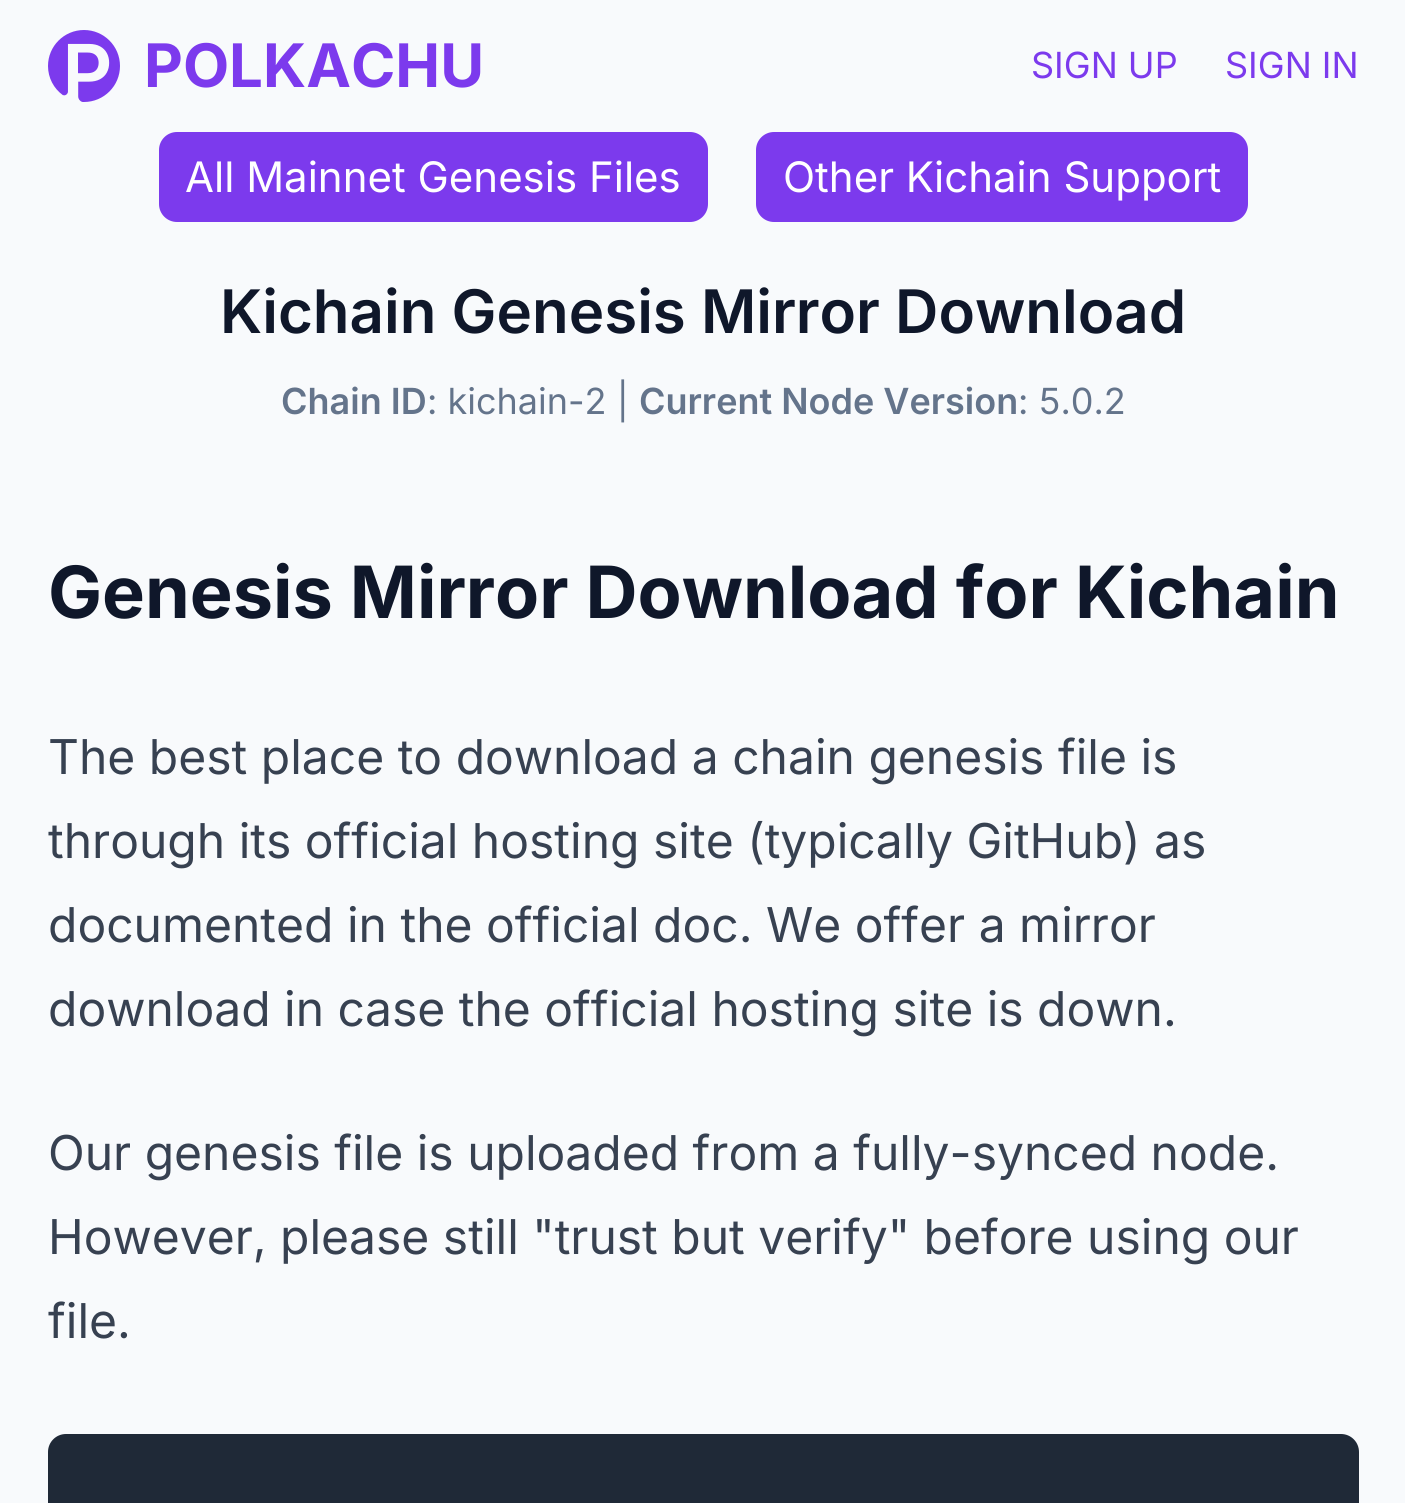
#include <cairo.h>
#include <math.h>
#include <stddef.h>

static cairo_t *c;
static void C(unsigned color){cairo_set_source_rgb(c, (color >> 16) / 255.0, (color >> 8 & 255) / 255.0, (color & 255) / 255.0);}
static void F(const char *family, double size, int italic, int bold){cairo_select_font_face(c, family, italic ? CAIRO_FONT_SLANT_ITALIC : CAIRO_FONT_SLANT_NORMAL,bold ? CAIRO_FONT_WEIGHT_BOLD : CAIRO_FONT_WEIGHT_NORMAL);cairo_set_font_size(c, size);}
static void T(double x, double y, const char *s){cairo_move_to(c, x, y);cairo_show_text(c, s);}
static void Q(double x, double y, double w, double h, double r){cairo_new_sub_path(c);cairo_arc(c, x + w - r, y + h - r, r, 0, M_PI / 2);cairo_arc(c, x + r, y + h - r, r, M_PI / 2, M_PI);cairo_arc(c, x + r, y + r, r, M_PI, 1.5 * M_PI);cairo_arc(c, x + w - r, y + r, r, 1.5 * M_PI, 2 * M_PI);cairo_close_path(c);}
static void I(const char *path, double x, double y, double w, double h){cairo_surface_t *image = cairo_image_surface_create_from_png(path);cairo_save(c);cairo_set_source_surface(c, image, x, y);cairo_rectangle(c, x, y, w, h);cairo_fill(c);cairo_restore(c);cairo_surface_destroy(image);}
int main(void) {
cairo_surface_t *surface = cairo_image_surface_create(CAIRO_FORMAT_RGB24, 1405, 1503);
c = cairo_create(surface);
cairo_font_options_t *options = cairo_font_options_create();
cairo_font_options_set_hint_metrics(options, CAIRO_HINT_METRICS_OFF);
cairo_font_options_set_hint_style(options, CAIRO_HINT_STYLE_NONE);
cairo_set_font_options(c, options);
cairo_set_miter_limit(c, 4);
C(0xf8fafc);
cairo_paint(c);
I("1.png",48,30,72,72);
F("Inter",60,0,1);
C(0x7c3aed);
T(144,87,"POLKACHU");
F("Inter",36,0,0);
T(1031,78,"SIGN UP");
T(1225,78,"SIGN IN");
Q(159,132,549,90,18);
cairo_fill(c);
F("Inter",42,0,0);
C(0xffffff);
T(185,192,"All Mainnet Genesis Files");
C(0x7c3aed);
Q(756,132,492,90,18);
cairo_fill(c);
C(0xffffff);
T(783,192,"Other Kichain Support");
F("Inter SemiBold",60,0,0);
C(0x0f172a);
T(220,333,"Kichain Genesis Mirror Download");
F("Inter SemiBold",36,0,0);
C(0x64748b);
T(281,414,"Chain ID");
F("Inter",36,0,0);
T(427,414,": kichain-2 |");
F("Inter SemiBold",36,0,0);
T(639,414,"Current Node Version");
F("Inter",36,0,0);
T(1018,414,": 5.0.2");
F("Inter",72,0,1);
C(0x0f172a);
T(48,618,"Genesis Mirror Download for Kichain");
F("Inter",48,0,0);
C(0x374151);
T(48,774,"The best place to download a chain genesis file is");
T(48,858,"through its official hosting site (typically GitHub) as");
T(48,942,"documented in the official doc. We offer a mirror");
T(48,1026,"download in case the official hosting site is down.");
T(48,1170,"Our genesis file is uploaded from a fully-synced node.");
T(48,1254,"However, please still \"trust but verify\" before using our");
T(48,1338,"file.");
C(0x1f2937);
Q(48,1434,1311,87,18);
cairo_fill(c);
cairo_surface_write_to_png(surface, "o.png");
cairo_font_options_destroy(options);
cairo_destroy(c);
cairo_surface_destroy(surface);
return 0;
}
